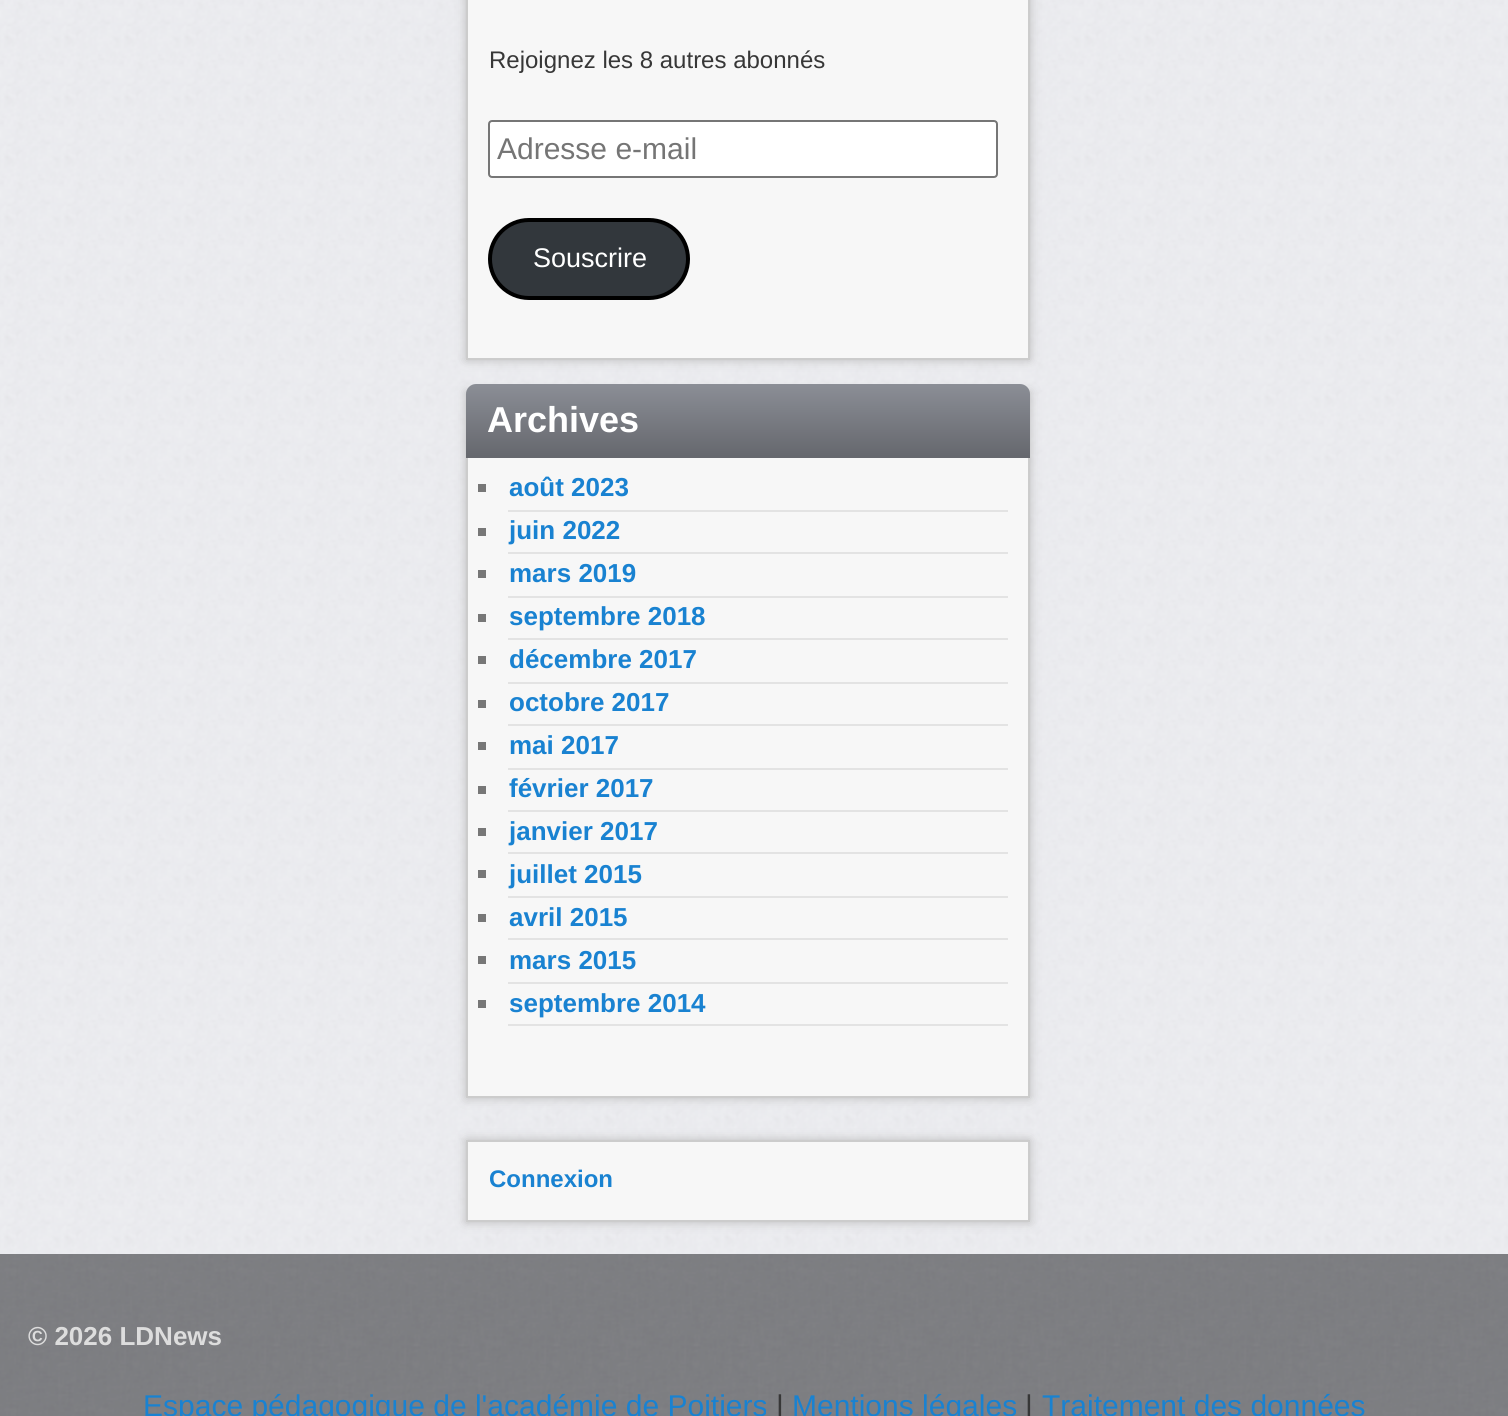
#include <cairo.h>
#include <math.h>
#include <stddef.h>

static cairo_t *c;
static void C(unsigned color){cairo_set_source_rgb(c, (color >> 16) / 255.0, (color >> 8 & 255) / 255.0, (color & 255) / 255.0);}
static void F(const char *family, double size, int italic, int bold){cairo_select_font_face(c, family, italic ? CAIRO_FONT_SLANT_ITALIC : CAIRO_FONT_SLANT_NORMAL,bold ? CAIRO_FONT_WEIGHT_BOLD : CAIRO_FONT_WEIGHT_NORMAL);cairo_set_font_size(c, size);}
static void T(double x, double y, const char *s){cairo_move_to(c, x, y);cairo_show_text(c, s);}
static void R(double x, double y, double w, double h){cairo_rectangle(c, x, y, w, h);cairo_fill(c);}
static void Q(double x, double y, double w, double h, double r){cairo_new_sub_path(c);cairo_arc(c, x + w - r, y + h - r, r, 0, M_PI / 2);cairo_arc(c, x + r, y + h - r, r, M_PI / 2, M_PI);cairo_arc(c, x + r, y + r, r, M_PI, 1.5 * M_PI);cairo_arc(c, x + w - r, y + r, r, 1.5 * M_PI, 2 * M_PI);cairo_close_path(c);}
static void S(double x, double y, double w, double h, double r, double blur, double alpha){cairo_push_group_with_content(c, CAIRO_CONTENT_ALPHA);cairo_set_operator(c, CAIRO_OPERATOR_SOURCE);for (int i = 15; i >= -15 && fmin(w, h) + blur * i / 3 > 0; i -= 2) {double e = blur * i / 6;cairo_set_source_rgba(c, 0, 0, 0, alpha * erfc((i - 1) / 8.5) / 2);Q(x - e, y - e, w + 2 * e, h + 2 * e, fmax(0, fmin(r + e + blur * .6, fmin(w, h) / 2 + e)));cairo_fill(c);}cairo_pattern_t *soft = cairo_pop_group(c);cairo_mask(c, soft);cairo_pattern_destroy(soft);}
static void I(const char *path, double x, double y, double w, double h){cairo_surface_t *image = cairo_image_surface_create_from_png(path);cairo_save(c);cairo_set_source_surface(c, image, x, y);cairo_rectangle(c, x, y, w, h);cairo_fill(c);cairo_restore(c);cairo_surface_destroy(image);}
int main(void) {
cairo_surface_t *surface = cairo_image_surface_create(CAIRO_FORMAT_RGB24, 1508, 1416);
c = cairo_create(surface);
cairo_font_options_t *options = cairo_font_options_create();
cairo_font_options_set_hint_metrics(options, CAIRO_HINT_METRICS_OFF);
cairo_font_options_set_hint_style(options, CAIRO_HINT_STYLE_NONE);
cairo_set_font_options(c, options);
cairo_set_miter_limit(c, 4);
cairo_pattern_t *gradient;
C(0xffffff);
cairo_paint(c);
I("1.png",0,0,1508,1254);
C(0xbbbbbb);
S(466,-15,564,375,0,5,1);
C(0xf7f7f7);
cairo_rectangle(c,467,-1,562,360);
cairo_fill_preserve(c);
C(0xcccccc);
cairo_stroke(c);
F("Liberation Sans",24,0,0);
C(0x373737);
T(489,68,"Rejoignez les 8 autres abonnés");
C(0xffffff);
Q(489,121,508,56,3);
cairo_fill_preserve(c);
C(0x767676);
cairo_stroke(c);
F("Liberation Sans",30,0,0);
C(0x757575);
T(497,159,"Adresse e-mail");
C(0x32373c);
Q(490,220,198,78,39);
cairo_fill_preserve(c);
C(0x000000);
cairo_set_line_width(c,4);
cairo_stroke(c);
F("Liberation Sans",27,0,0);
C(0xffffff);
T(533,267,"Souscrire");
C(0xbbbbbb);
S(466,392,564,706,0,5,1);
C(0xf7f7f7);
R(468,458,560,638);
cairo_rectangle(c,467,393,562,704);
C(0xcccccc);
cairo_set_line_width(c,2);
cairo_stroke(c);
gradient = cairo_pattern_create_linear(748,384,748,456);
cairo_pattern_add_color_stop_rgba(gradient,0,0.545,0.557,0.588,1);
cairo_pattern_add_color_stop_rgba(gradient,1,0.4,0.408,0.431,1);
cairo_set_source(c,gradient);
cairo_pattern_destroy(gradient);
cairo_new_path(c);
cairo_move_to(c,476,384);
cairo_line_to(c,1020,384);
cairo_curve_to(c,1025.5,384,1030,388.5,1030,394);
cairo_line_to(c,1030,456);
cairo_line_to(c,466,456);
cairo_line_to(c,466,394);
cairo_curve_to(c,466,388.5,470.5,384,476,384);
cairo_close_path(c);
cairo_fill(c);
C(0x66686e);
R(466,456,564,2);
F("Liberation Sans",36,0,1);
C(0xffffff);
T(487,432,"Archives");
C(0xe3e3e3);
R(508,510,500,2);
C(0x777777);
R(478,484,8,8);
F("Liberation Sans",26,0,1);
C(0x1982d1);
T(509,496,"août 2023");
C(0xe3e3e3);
R(508,552,500,2);
C(0x777777);
R(478,528,8,8);
C(0x1982d1);
T(509,539,"juin 2022");
C(0xe3e3e3);
R(508,596,500,2);
C(0x777777);
R(478,570,8,8);
C(0x1982d1);
T(509,582,"mars 2019");
C(0xe3e3e3);
R(508,638,500,2);
C(0x777777);
R(478,614,8,8);
C(0x1982d1);
T(509,625,"septembre 2018");
C(0xe3e3e3);
R(508,682,500,2);
C(0x777777);
R(478,656,8,8);
C(0x1982d1);
T(509,668,"décembre 2017");
C(0xe3e3e3);
R(508,724,500,2);
C(0x777777);
R(478,700,8,8);
C(0x1982d1);
T(509,711,"octobre 2017");
C(0xe3e3e3);
R(508,768,500,2);
C(0x777777);
R(478,742,8,8);
C(0x1982d1);
T(509,754,"mai 2017");
C(0xe3e3e3);
R(508,810,500,2);
C(0x777777);
R(478,786,8,8);
C(0x1982d1);
T(509,797,"février 2017");
C(0xe3e3e3);
R(508,852,500,2);
C(0x777777);
R(478,828,8,8);
C(0x1982d1);
T(509,840,"janvier 2017");
C(0xe3e3e3);
R(508,896,500,2);
C(0x777777);
R(478,870,8,8);
C(0x1982d1);
T(509,883,"juillet 2015");
C(0xe3e3e3);
R(508,938,500,2);
C(0x777777);
R(478,914,8,8);
C(0x1982d1);
T(509,926,"avril 2015");
C(0xe3e3e3);
R(508,982,500,2);
C(0x777777);
R(478,956,8,8);
C(0x1982d1);
T(509,969,"mars 2015");
C(0xe3e3e3);
R(508,1024,500,2);
C(0x777777);
R(478,1000,8,8);
C(0x1982d1);
T(509,1012,"septembre 2014");
C(0xbbbbbb);
S(466,1140,564,82,0,5,1);
C(0xf7f7f7);
cairo_rectangle(c,467,1141,562,80);
cairo_fill_preserve(c);
C(0xcccccc);
cairo_stroke(c);
F("Liberation Sans",24,0,1);
C(0x1982d1);
T(489,1187,"Connexion");
I("2.png",0,1254,1508,162);
F("Liberation Sans",26,0,1);
C(0xdddddd);
T(28,1345,"© 2026 LDNews");
F("Liberation Sans",30,0,0);
C(0x1982d1);
T(143,1416,"Espace pédagogique de l'académie de Poitiers");
C(0x373737);
T(776,1416,"|");
C(0x1982d1);
T(792,1416,"Mentions légales");
C(0x373737);
T(1025,1416,"|");
C(0x1982d1);
T(1042,1416,"Traitement des données");
cairo_surface_write_to_png(surface, "o.png");
cairo_font_options_destroy(options);
cairo_destroy(c);
cairo_surface_destroy(surface);
return 0;
}
